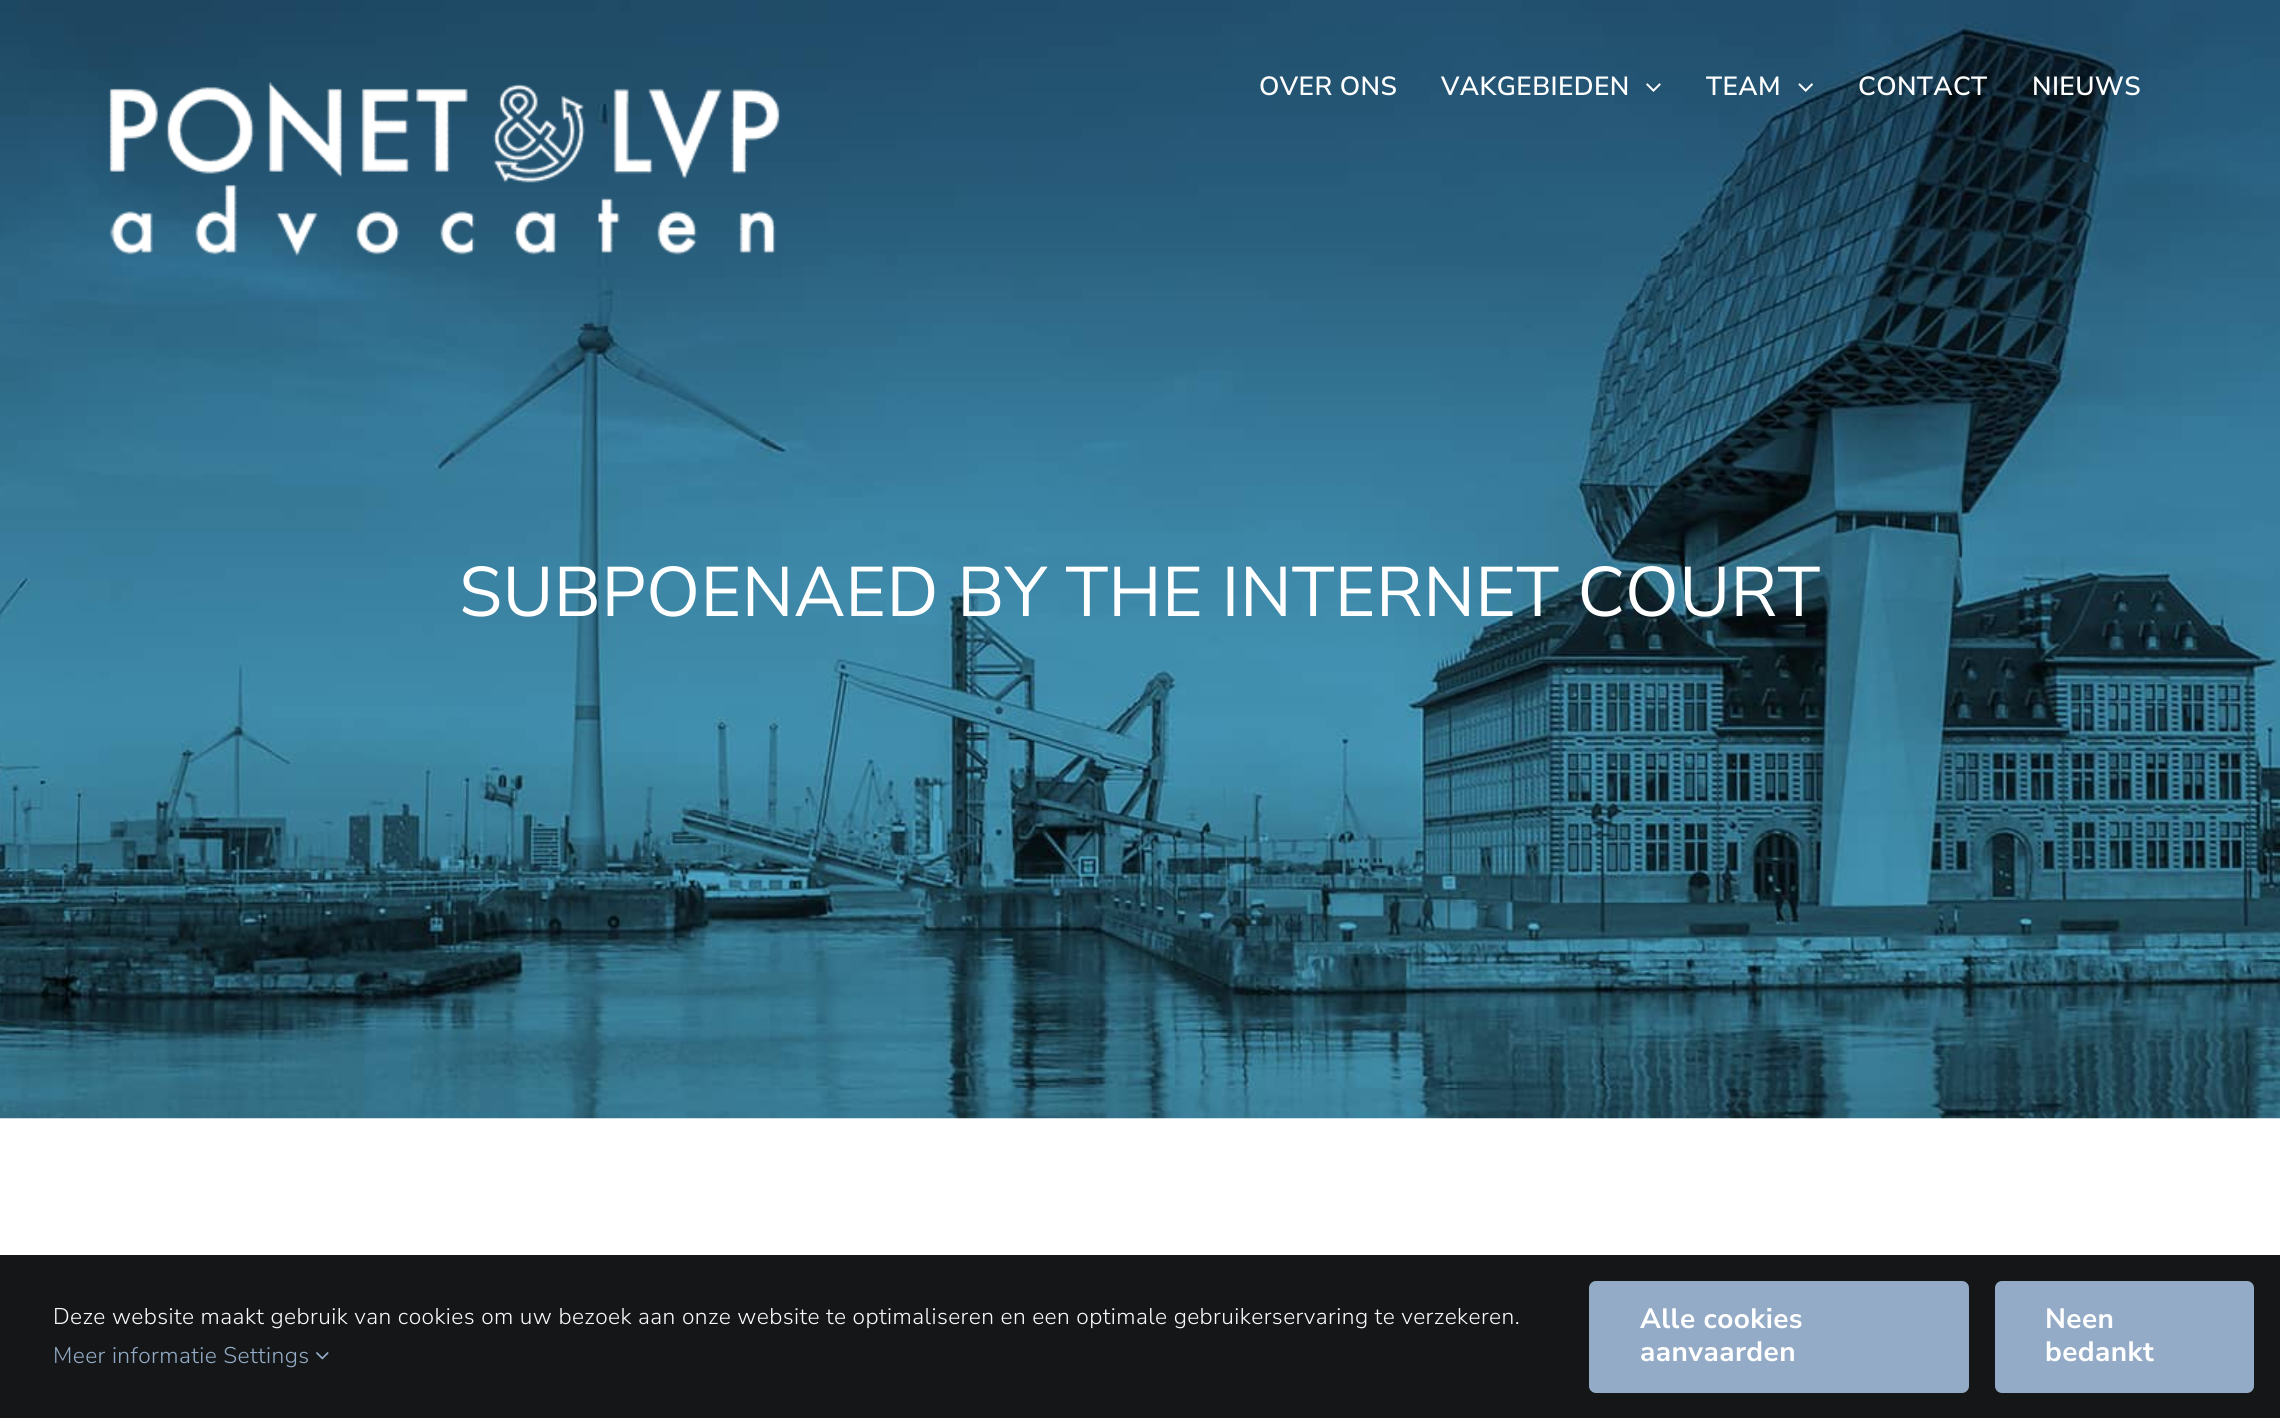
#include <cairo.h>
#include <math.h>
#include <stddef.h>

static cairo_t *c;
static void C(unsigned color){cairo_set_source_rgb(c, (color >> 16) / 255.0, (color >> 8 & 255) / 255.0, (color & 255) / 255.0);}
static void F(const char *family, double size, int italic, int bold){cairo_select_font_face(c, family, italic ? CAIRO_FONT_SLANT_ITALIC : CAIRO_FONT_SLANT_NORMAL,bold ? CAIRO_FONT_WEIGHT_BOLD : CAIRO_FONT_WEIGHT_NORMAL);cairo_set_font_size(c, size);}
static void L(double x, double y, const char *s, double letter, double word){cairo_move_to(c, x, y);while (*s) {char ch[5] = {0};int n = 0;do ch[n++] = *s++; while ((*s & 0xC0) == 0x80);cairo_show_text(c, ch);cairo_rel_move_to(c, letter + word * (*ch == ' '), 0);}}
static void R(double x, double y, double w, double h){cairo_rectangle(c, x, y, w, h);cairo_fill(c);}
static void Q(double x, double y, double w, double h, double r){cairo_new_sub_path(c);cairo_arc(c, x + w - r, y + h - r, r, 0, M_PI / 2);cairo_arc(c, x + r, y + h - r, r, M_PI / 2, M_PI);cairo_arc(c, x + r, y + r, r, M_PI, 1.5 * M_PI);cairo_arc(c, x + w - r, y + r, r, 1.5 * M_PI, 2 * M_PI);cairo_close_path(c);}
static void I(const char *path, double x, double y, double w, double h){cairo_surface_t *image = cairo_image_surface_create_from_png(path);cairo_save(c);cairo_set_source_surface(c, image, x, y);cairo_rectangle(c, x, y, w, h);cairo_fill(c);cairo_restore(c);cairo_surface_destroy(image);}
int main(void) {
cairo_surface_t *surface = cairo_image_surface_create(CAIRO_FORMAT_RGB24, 2280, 1418);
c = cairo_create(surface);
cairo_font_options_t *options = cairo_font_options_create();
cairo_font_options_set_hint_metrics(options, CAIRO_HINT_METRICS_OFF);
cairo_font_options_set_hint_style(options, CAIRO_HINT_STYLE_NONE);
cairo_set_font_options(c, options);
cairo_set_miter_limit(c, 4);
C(0xffffff);
cairo_paint(c);
I("4.png",0,0,2280,1119);
I("1.png",109,82,671,174);
F("Nunito Sans SemiBold",26.25,0,0);
C(0xffffff);
L(1259,95,"OVER ONS",.4,0);
L(1441,95,"VAKGEBIEDEN",.4,0);
I("2.png",1646,83,15,9);
L(1706,95,"TEAM",.4,0);
I("3.png",1798,83,15,9);
L(1858,95,"CONTACT",.4,0);
L(2032,95,"NIEUWS",.4,0);
F("Nunito Sans",70,0,0);
L(459,616,"SUBPOENAED BY THE INTERNET COURT",.42,0);
C(0x141617);
R(0,1255,2280,163);
F("Nunito Sans Light",22.75,0,0);
C(0xf9f9fb);
L(53,1324,"Deze website maakt gebruik van cookies om uw bezoek aan onze website te optimaliseren en een optimale gebruikerservaring te verzekeren.",.42,0);
C(0x93abc6);
L(53,1363,"Meer informatie Settings",.42,0);
I("5.png",316,1352,13,8);
Q(1589,1281,380,112,7);
cairo_fill(c);
F("Nunito Sans",28,0,1);
C(0xffffff);
L(1640,1328,"Alle cookies",.42,0);
L(1640,1361,"aanvaarden",.42,0);
C(0x93abc6);
Q(1995,1281,259,112,7);
cairo_fill(c);
C(0xffffff);
L(2045,1328,"Neen",.42,0);
L(2045,1361,"bedankt",.42,0);
cairo_surface_write_to_png(surface, "o.png");
cairo_font_options_destroy(options);
cairo_destroy(c);
cairo_surface_destroy(surface);
return 0;
}
